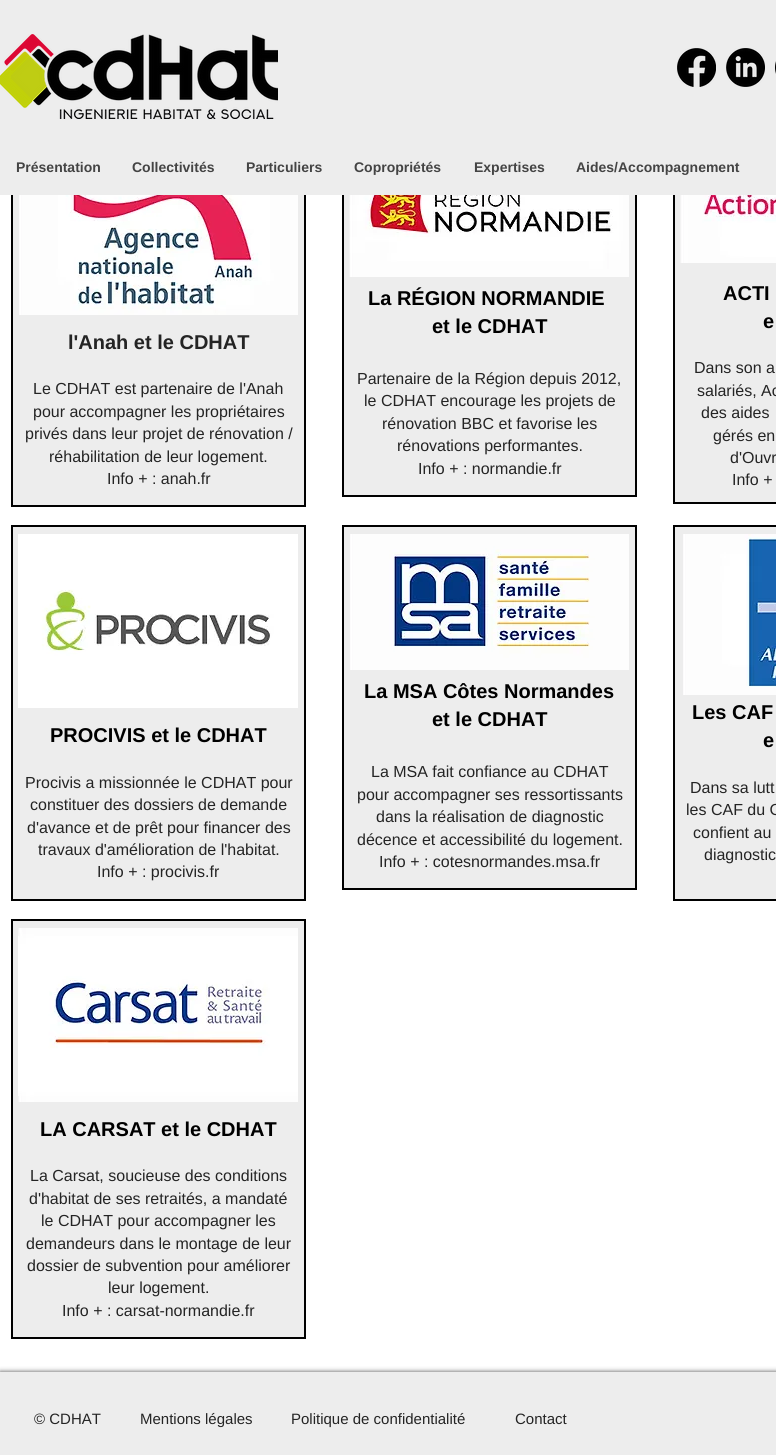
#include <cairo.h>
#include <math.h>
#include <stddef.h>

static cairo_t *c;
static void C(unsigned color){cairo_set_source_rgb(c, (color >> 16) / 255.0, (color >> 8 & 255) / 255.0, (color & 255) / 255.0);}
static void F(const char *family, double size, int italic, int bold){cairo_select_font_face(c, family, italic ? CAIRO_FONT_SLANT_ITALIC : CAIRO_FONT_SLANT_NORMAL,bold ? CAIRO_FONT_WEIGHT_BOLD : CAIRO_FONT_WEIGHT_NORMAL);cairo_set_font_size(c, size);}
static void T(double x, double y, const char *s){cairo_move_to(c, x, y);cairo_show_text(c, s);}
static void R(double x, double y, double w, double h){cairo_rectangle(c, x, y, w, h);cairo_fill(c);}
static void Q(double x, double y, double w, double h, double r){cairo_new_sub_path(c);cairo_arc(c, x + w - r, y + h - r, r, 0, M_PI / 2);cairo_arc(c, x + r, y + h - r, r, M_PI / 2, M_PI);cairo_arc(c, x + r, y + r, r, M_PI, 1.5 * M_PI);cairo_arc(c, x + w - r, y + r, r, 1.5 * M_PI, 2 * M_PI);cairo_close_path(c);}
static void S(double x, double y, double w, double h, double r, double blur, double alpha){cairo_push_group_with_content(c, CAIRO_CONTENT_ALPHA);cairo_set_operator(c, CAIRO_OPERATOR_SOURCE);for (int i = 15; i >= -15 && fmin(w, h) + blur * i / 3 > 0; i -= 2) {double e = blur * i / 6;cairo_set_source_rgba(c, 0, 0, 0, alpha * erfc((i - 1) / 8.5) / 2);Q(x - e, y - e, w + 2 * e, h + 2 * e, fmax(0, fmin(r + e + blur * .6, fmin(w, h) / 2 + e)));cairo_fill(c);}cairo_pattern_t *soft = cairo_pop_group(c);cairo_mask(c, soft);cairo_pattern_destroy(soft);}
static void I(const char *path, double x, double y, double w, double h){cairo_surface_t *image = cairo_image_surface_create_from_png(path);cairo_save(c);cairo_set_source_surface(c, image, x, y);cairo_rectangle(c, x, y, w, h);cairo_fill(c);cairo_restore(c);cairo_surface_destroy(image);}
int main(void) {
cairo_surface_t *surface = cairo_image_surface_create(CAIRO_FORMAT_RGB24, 776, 1455);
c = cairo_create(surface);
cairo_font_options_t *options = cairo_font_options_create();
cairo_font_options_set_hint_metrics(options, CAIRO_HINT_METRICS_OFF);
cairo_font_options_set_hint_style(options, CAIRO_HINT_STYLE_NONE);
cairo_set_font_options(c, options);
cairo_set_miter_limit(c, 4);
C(0xffffff);
cairo_paint(c);
C(0xededed);
R(13,195,291,310);
cairo_rectangle(c,12,133,293,373);
C(0x000000);
cairo_stroke(c);
C(0xededed);
R(344,195,291,300);
cairo_rectangle(c,343,133,293,363);
C(0x000000);
cairo_stroke(c);
C(0xededed);
R(675,195,101,307);
cairo_rectangle(c,674,133,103,370);
C(0x000000);
cairo_stroke(c);
C(0xededed);
R(0,0,776,195);
I("1.png",0,34,278,85);
I("2.png",677,48,39,39);
I("3.png",726,48,39,39);
I("4.png",775,61,1,13);
F("Liberation Sans",14,0,1);
C(0x444444);
T(16,172,"Présentation");
T(132,172,"Collectivités");
T(246,172,"Particuliers");
T(354,172,"Copropriétés");
T(474,172,"Expertises");
T(576,172,"Aides/Accompagnement");
I("5.png",19,195,279,120);
F("Liberation Sans",20,0,1);
C(0x242424);
T(68,349,"l'Anah et le CDHAT");
F("Liberation Sans",16,0,0);
T(33,394,"Le CDHAT est partenaire de l'Anah");
T(33,417,"pour accompagner les propriétaires");
T(25,439,"privés dans leur projet de rénovation /");
T(49,462,"réhabilitation de leur logement.");
T(107,484,"Info + : anah.fr");
I("6.png",349,195,280,82);
F("Liberation Sans",20,0,1);
C(0x000000);
T(368,305,"La RÉGION NORMANDIE");
T(432,333,"et le CDHAT");
F("Liberation Sans",16,0,0);
C(0x242424);
T(357,384,"Partenaire de la Région depuis 2012,");
T(364,406,"le CDHAT encourage les projets de");
T(382,429,"rénovation BBC et favorise les");
T(397,451,"rénovations performantes.");
T(418,474,"Info + : normandie.fr");
I("7.png",680,195,96,68);
F("Liberation Sans",20,0,1);
C(0x000000);
T(723,300,"ACTI");
T(763,328,"e");
F("Liberation Sans",16,0,0);
C(0x242424);
T(694,373,"Dans son a");
T(697,396,"salariés, Ac");
T(701,418,"des aides");
T(713,441,"gérés en");
T(730,463,"d'Ouvr");
T(732,485,"Info +");
C(0xededed);
cairo_rectangle(c,12,526,293,374);
cairo_fill_preserve(c);
C(0x000000);
cairo_stroke(c);
I("8.png",18,534,280,174);
F("Liberation Sans",20,0,1);
T(50,742,"PROCIVIS et le CDHAT");
F("Liberation Sans",16,0,0);
C(0x242424);
T(25,788,"Procivis a missionnée le CDHAT pour");
T(30,810,"constituer des dossiers de demande");
T(27,833,"d'avance et de prêt pour financer des");
T(38,855,"travaux d'amélioration de l'habitat.");
T(97,877,"Info + : procivis.fr");
C(0xededed);
cairo_rectangle(c,343,526,293,363);
cairo_fill_preserve(c);
C(0x000000);
cairo_stroke(c);
I("9.png",350,534,279,136);
F("Liberation Sans",20,0,1);
T(364,698,"La MSA Côtes Normandes");
T(432,726,"et le CDHAT");
F("Liberation Sans",16,0,0);
C(0x242424);
T(371,777,"La MSA fait confiance au CDHAT");
T(357,800,"pour accompagner ses ressortissants");
T(376,822,"dans la réalisation de diagnostic");
T(357,845,"décence et accessibilité du logement.");
T(379,867,"Info + : cotesnormandes.msa.fr");
C(0xededed);
cairo_rectangle(c,674,526,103,374);
cairo_fill_preserve(c);
C(0x000000);
cairo_stroke(c);
I("10.png",683,534,93,161);
F("Liberation Sans",20,0,1);
T(692,719,"Les CAF");
T(763,747,"e");
F("Liberation Sans",16,0,0);
C(0x242424);
T(690,793,"Dans sa lutt");
T(686,815,"les CAF du C");
T(693,838,"confient au");
T(704,860,"diagnostic");
C(0xededed);
cairo_rectangle(c,12,920,293,418);
cairo_fill_preserve(c);
C(0x000000);
cairo_stroke(c);
I("11.png",18,928,280,174);
F("Liberation Sans",20,0,1);
T(40,1136,"LA CARSAT et le CDHAT");
F("Liberation Sans",16,0,0);
C(0x242424);
T(30,1181,"La Carsat, soucieuse des conditions");
T(29,1204,"d'habitat de ses retraités, a mandaté");
T(41,1226,"le CDHAT pour accompagner les");
T(26,1249,"demandeurs dans le montage de leur");
T(27,1271,"dossier de subvention pour améliorer");
T(108,1293,"leur logement.");
T(62,1316,"Info + : carsat-normandie.fr");
C(0x000000);
S(0,1372,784,83,0,2.5,.7);
C(0xededed);
R(0,1372,776,83);
F("Liberation Sans",15,0,0);
C(0x242424);
T(34,1424,"© CDHAT");
T(140,1424,"Mentions légales");
T(291,1424,"Politique de confidentialité");
T(515,1424,"Contact");
cairo_surface_write_to_png(surface, "o.png");
cairo_font_options_destroy(options);
cairo_destroy(c);
cairo_surface_destroy(surface);
return 0;
}
